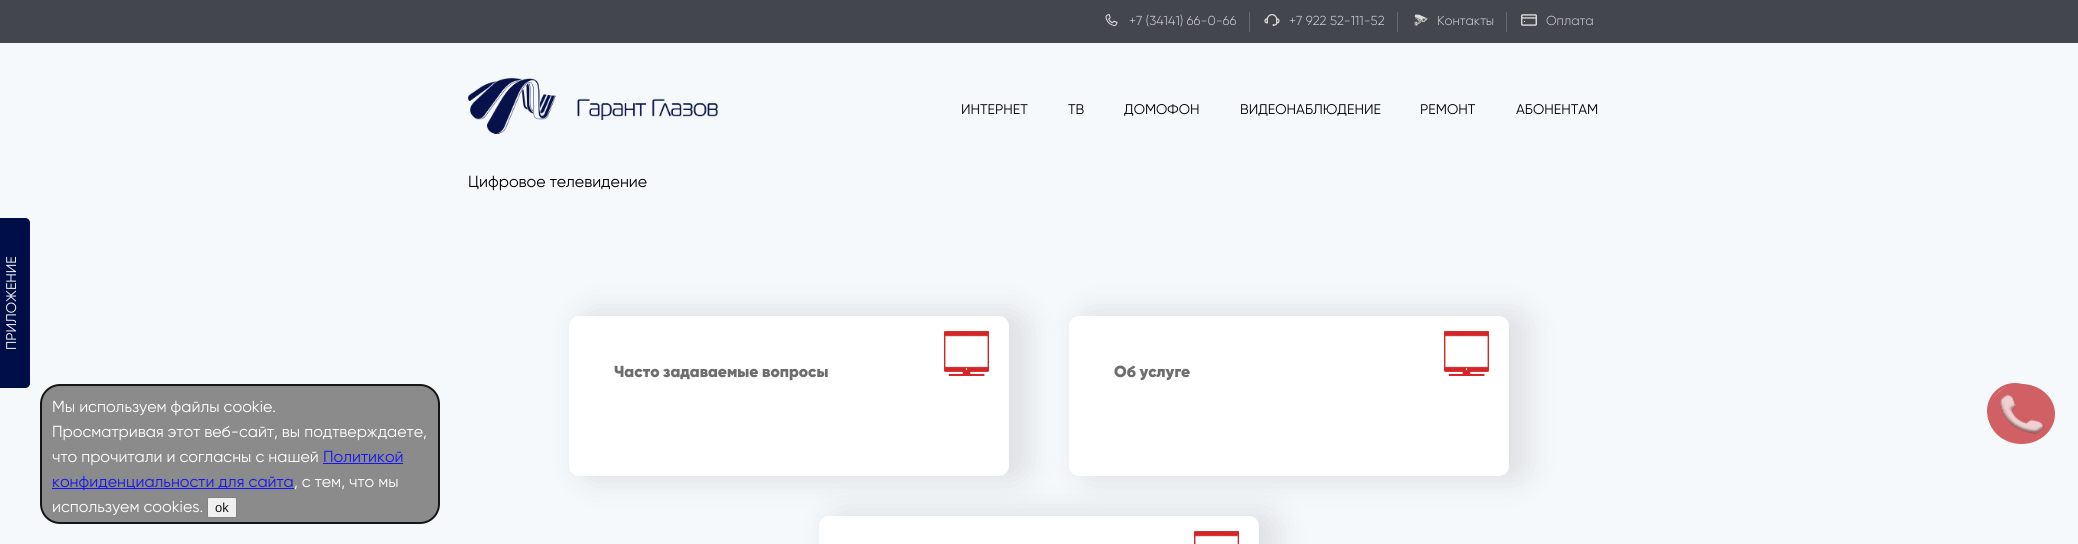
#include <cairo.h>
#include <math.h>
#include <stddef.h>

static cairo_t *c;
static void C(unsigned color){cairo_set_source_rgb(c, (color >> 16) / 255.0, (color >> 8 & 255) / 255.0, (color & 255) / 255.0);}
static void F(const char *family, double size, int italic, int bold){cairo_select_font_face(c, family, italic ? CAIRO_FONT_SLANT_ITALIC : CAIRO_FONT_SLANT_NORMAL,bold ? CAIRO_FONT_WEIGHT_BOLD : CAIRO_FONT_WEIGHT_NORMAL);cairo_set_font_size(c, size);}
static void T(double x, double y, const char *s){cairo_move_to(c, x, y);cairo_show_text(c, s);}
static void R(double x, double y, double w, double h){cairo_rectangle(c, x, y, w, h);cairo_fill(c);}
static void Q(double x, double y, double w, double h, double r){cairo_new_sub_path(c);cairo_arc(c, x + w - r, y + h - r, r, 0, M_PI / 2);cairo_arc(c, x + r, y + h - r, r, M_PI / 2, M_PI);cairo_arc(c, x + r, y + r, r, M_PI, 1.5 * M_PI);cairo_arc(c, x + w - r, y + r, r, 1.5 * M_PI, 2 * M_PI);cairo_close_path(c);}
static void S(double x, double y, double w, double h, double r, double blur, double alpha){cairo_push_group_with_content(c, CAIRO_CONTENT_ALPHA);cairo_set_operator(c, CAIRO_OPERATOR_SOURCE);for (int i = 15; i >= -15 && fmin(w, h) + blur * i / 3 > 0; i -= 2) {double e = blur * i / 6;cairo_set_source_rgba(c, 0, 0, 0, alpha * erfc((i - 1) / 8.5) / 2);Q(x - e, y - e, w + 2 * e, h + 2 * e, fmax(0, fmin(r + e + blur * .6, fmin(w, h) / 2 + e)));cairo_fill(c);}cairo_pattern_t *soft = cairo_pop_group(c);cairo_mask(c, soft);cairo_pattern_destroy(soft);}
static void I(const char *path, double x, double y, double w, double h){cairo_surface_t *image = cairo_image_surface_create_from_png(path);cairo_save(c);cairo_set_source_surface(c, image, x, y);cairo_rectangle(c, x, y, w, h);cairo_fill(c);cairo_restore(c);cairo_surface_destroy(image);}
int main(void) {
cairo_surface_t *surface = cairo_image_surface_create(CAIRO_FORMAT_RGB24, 2078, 544);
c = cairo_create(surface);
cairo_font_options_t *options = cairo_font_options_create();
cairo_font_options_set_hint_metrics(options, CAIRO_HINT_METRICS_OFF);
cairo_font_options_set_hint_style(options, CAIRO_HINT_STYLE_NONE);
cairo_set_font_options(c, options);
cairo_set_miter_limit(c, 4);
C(0xf6f9fc);
cairo_paint(c);
C(0x43474d);
R(0,0,2078,43);
I("1.png",1105,14,13,12);
F("Gilroy Light",13,0,0);
C(0xdadada);
T(1129,25,"+7 (34141) 66-0-66");
C(0x66686d);
R(1249,12,1,20);
I("2.png",1264,14,16,12);
C(0xdadada);
T(1289,25,"+7 922 52-111-52");
C(0x66686d);
R(1397,12,1,20);
I("3.png",1414,14,14,12);
C(0xdadada);
T(1437,25,"Контакты");
C(0x66686d);
R(1506,12,1,20);
I("4.png",1521,14,16,12);
C(0xdadada);
T(1546,25,"Оплата");
I("5.png",468,78,250,56);
F("Gilroy",14,0,0);
C(0x000000);
T(961,114,"ИНТЕРНЕТ");
T(1068,114,"ТВ");
T(1124,114,"ДОМОФОН");
T(1240,114,"ВИДЕОНАБЛЮДЕНИЕ");
T(1420,114,"РЕМОНТ");
T(1516,114,"АБОНЕНТАМ");
C(0x000e47);
cairo_new_path(c);
cairo_move_to(c,0,218);
cairo_line_to(c,25,218);
cairo_curve_to(c,28,218,30,220,30,223);
cairo_line_to(c,30,383);
cairo_curve_to(c,30,386,28,388,25,388);
cairo_line_to(c,0,388);
cairo_close_path(c);
cairo_fill(c);
C(0xffffff);
cairo_save(c);
cairo_translate(c,16,350);
cairo_rotate(c,-90 * M_PI / 180);
T(0,0,"ПРИЛОЖЕНИЕ");
cairo_restore(c);
F("Gilroy",16,0,0);
C(0x000000);
T(468,187,"Цифровое телевидение");
C(0x000000);
S(579,311,450,170,15,15,.1);
C(0xffffff);
Q(569,316,440,160,10);
cairo_fill(c);
F("Gilroy Black",16,0,0);
C(0x6d6d6d);
T(614,377,"Часто задаваемые вопросы");
I("6.png",944,331,45,45);
C(0x000000);
S(1079,311,450,170,15,15,.1);
C(0xffffff);
Q(1069,316,440,160,10);
cairo_fill(c);
C(0x6d6d6d);
T(1114,377,"Об услуге");
I("6.png",1444,331,45,45);
C(0x000000);
S(829,511,450,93,15,15,.1);
C(0xffffff);
Q(819,516,440,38,10);
cairo_fill(c);
I("7.png",1194,531,45,13);
C(0x8b8b8b);
Q(41,385,398,138,19);
cairo_fill_preserve(c);
C(0x161617);
cairo_stroke(c);
F("Gilroy",16,0,0);
C(0xffffff);
T(52,412,"Мы используем файлы cookie.");
T(52,437,"Просматривая этот веб-сайт, вы подтверждаете,");
T(52,462,"что прочитали и согласны с нашей");
C(0x1616ef);
T(323,462,"Политикой");
R(323,463,80,1);
R(52,488,242,1);
T(52,487,"конфиденциальности для сайта");
C(0xffffff);
T(294,487,", с тем, что мы");
T(52,512,"используем cookies.");
C(0xf0f0f0);
Q(207.5,497.5,29,20,1.5);
cairo_fill_preserve(c);
C(0x828282);
cairo_set_line_width(c,1);
cairo_stroke(c);
F("Liberation Sans",13,0,0);
C(0x161617);
T(215,512,"ok");
cairo_new_path(c);
cairo_arc(c,2015,411,26.5,0,2 * M_PI);
C(0xd06063);
cairo_set_line_width(c,3);
cairo_stroke(c);
cairo_new_path(c);
cairo_move_to(c,2021.5,384);
cairo_curve_to(c,2040,384,2055,397.5,2055,414);
cairo_curve_to(c,2055,430.5,2040,444,2021.5,444);
cairo_curve_to(c,2003,444,1988,430.5,1988,414);
cairo_curve_to(c,1988,397.5,2003,384,2021.5,384);
cairo_close_path(c);
cairo_fill(c);
I("8.png",2000,394,45,40);
cairo_surface_write_to_png(surface, "o.png");
cairo_font_options_destroy(options);
cairo_destroy(c);
cairo_surface_destroy(surface);
return 0;
}
